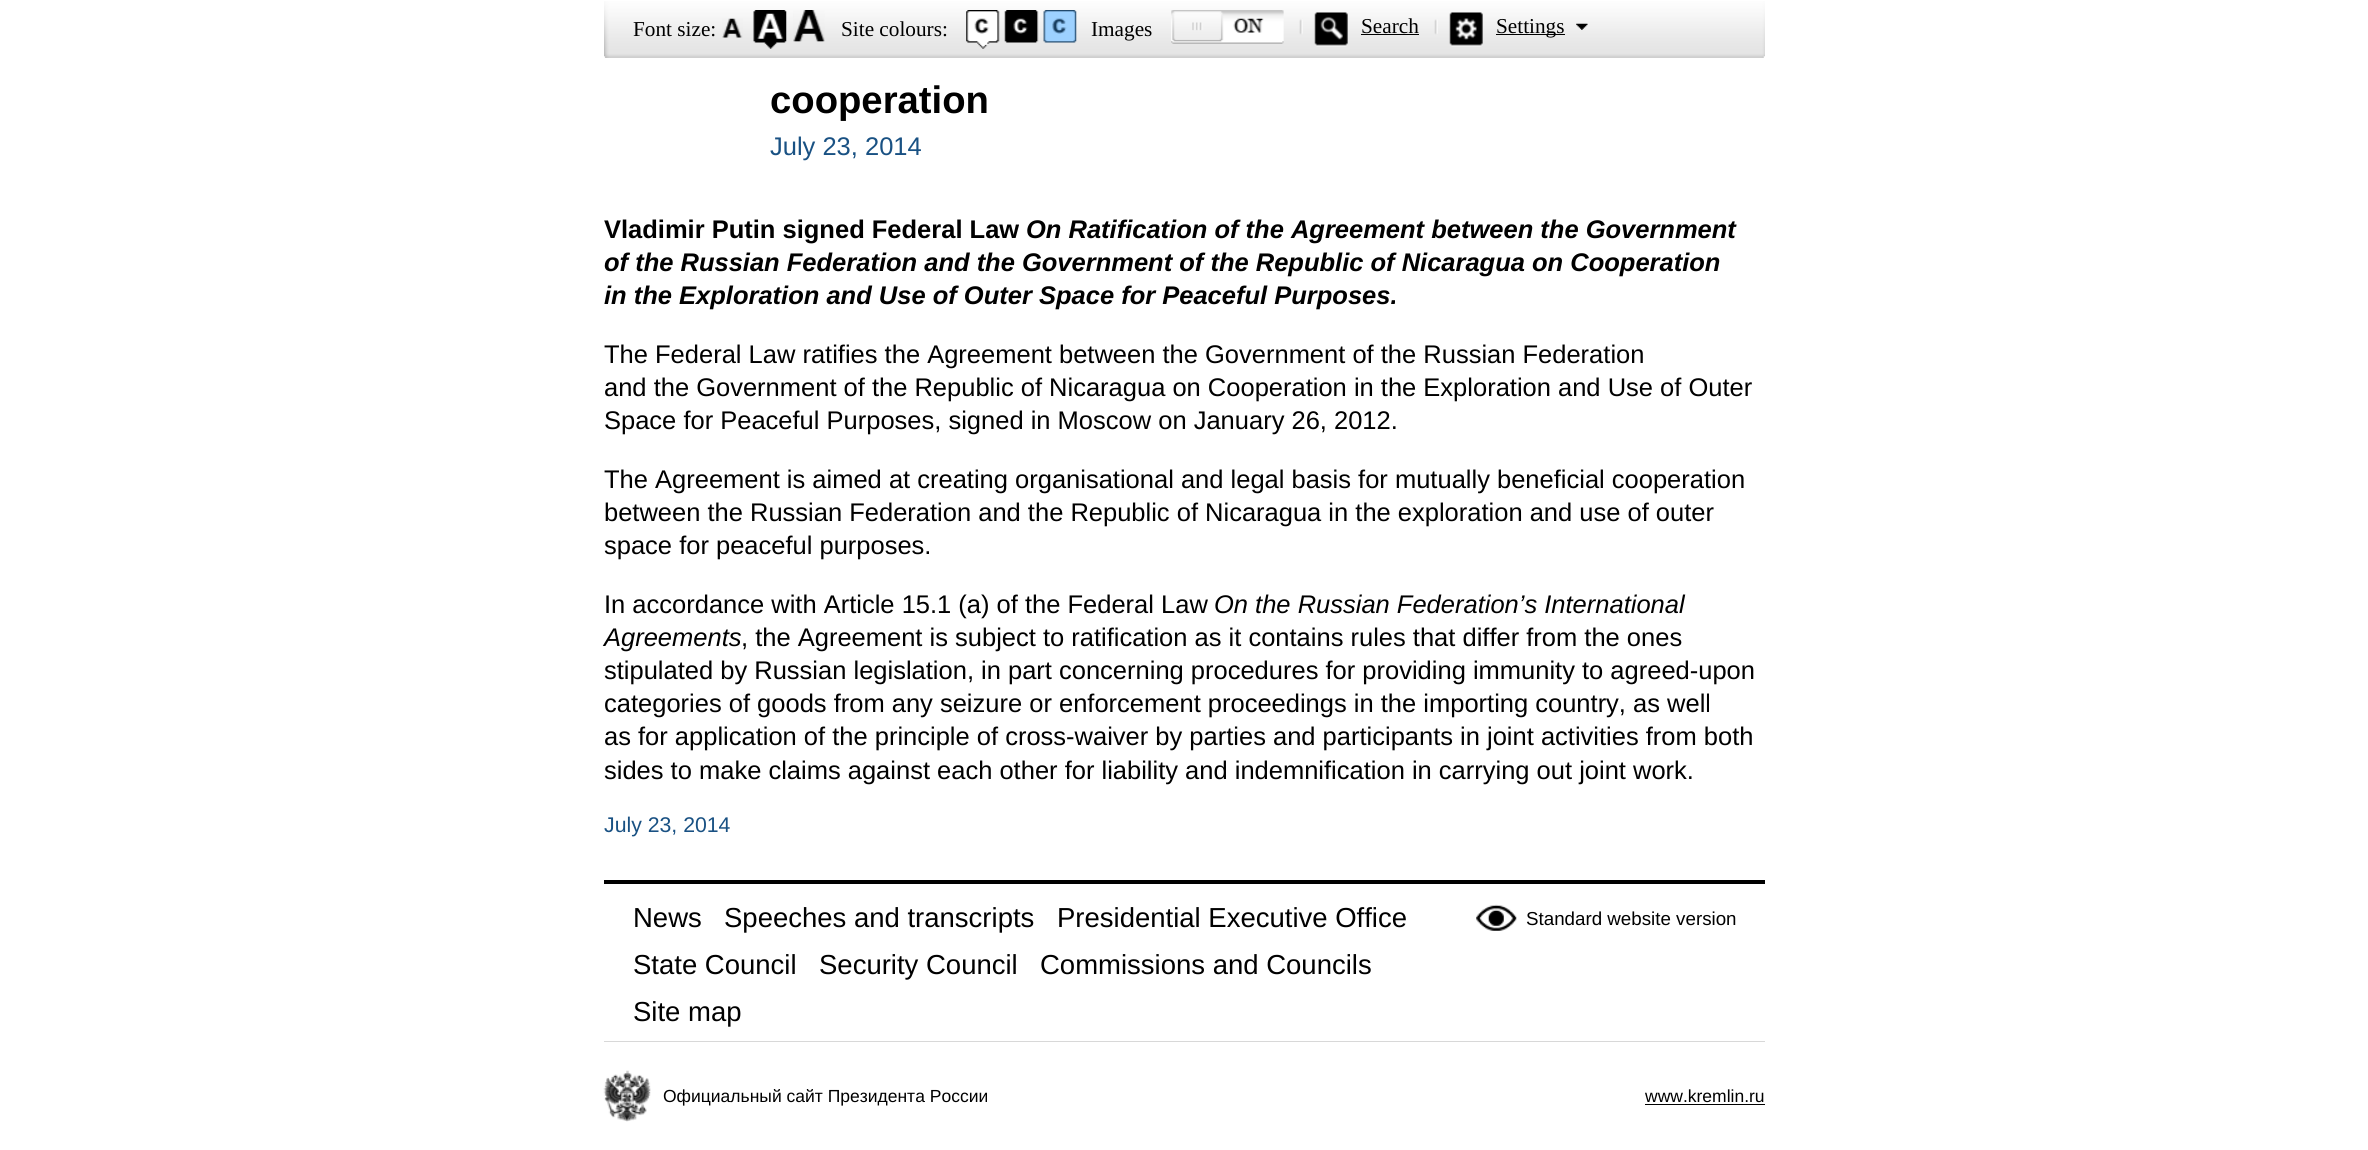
#include <cairo.h>
#include <math.h>
#include <stddef.h>

static cairo_t *c;
static void C(unsigned color){cairo_set_source_rgb(c, (color >> 16) / 255.0, (color >> 8 & 255) / 255.0, (color & 255) / 255.0);}
static void F(const char *family, double size, int italic, int bold){cairo_select_font_face(c, family, italic ? CAIRO_FONT_SLANT_ITALIC : CAIRO_FONT_SLANT_NORMAL,bold ? CAIRO_FONT_WEIGHT_BOLD : CAIRO_FONT_WEIGHT_NORMAL);cairo_set_font_size(c, size);}
static void T(double x, double y, const char *s){cairo_move_to(c, x, y);cairo_show_text(c, s);}
static void R(double x, double y, double w, double h){cairo_rectangle(c, x, y, w, h);cairo_fill(c);}
static void I(const char *path, double x, double y, double w, double h){cairo_surface_t *image = cairo_image_surface_create_from_png(path);cairo_save(c);cairo_set_source_surface(c, image, x, y);cairo_rectangle(c, x, y, w, h);cairo_fill(c);cairo_restore(c);cairo_surface_destroy(image);}
int main(void) {
cairo_surface_t *surface = cairo_image_surface_create(CAIRO_FORMAT_RGB24, 2368, 1150);
c = cairo_create(surface);
cairo_font_options_t *options = cairo_font_options_create();
cairo_font_options_set_hint_metrics(options, CAIRO_HINT_METRICS_OFF);
cairo_font_options_set_hint_style(options, CAIRO_HINT_STYLE_NONE);
cairo_set_font_options(c, options);
cairo_set_miter_limit(c, 4);
C(0xffffff);
cairo_paint(c);
I("1.png",604,1,1161,57);
F("Liberation Serif",21.25,0,0);
C(0x000000);
T(633,36,"Font size:");
I("2.png",722,18,21,20);
I("3.png",753,10,34,39);
I("4.png",793,10,32,32);
T(841,36,"Site colours:");
I("5.png",966,10,34,39);
I("6.png",1004,10,35,33);
I("7.png",1043,10,34,33);
T(1091,36,"Images");
I("8.png",1171,10,113,34);
I("9.png",1299,12,49,35);
T(1361,33,"Search");
R(1361,34,58,1);
I("10.png",1434,12,49,35);
R(1496,34,69,1);
T(1496,33,"Settings");
I("11.png",1576,23,12,7);
F("Liberation Sans",38.25,0,1);
T(770,113,"cooperation");
F("Liberation Sans",25.5,0,0);
C(0x195183);
T(770,155,"July 23, 2014");
F("Liberation Sans",25.5,0,1);
C(0x000000);
T(604,238,"Vladimir Putin signed Federal Law");
F("Liberation Sans",25.5,1,1);
T(1026,238,"On Ratification of the Agreement between the Government");
T(604,271,"of the Russian Federation and the Government of the Republic of Nicaragua on Cooperation");
T(604,304,"in the Exploration and Use of Outer Space for Peaceful Purposes.");
F("Liberation Sans",25.5,0,0);
T(604,363,"The Federal Law ratifies the Agreement between the Government of the Russian Federation");
T(604,396,"and the Government of the Republic of Nicaragua on Cooperation in the Exploration and Use of Outer");
T(604,429,"Space for Peaceful Purposes, signed in Moscow on January 26, 2012.");
T(604,488,"The Agreement is aimed at creating organisational and legal basis for mutually beneficial cooperation");
T(604,521,"between the Russian Federation and the Republic of Nicaragua in the exploration and use of outer");
T(604,554,"space for peaceful purposes.");
T(604,613,"In accordance with Article 15.1 (a) of the Federal Law");
F("Liberation Sans",25.5,1,0);
T(1214,613,"On the Russian Federation’s International");
T(604,646,"Agreements");
F("Liberation Sans",25.5,0,0);
T(741,646,", the Agreement is subject to ratification as it contains rules that differ from the ones");
T(604,679,"stipulated by Russian legislation, in part concerning procedures for providing immunity to agreed-upon");
T(604,712,"categories of goods from any seizure or enforcement proceedings in the importing country, as well");
T(604,745,"as for application of the principle of cross-waiver by parties and participants in joint activities from both");
T(604,779,"sides to make claims against each other for liability and indemnification in carrying out joint work.");
F("Liberation Sans",21.25,0,0);
C(0x195183);
T(604,832,"July 23, 2014");
C(0x000000);
R(604,880,1161,4);
F("Liberation Sans",27.5,0,0);
T(633,927,"News");
T(724,927,"Speeches and transcripts");
T(1057,927,"Presidential Executive Office");
T(633,974,"State Council");
T(819,974,"Security Council");
T(1040,974,"Commissions and Councils");
T(633,1021,"Site map");
I("12.png",1476,904,41,27);
F("Liberation Sans",18.75,0,0);
T(1526,925,"Standard website version");
C(0xd8d8d8);
R(604,1041,1161,1);
I("13.png",603,1070,48,52);
F("Liberation Sans",17.5,0,0);
C(0x000000);
T(663,1102,"Официальный сайт Президента России");
T(1645,1102,"www.kremlin.ru");
R(1645,1104,120,1);
cairo_surface_write_to_png(surface, "o.png");
cairo_font_options_destroy(options);
cairo_destroy(c);
cairo_surface_destroy(surface);
return 0;
}
